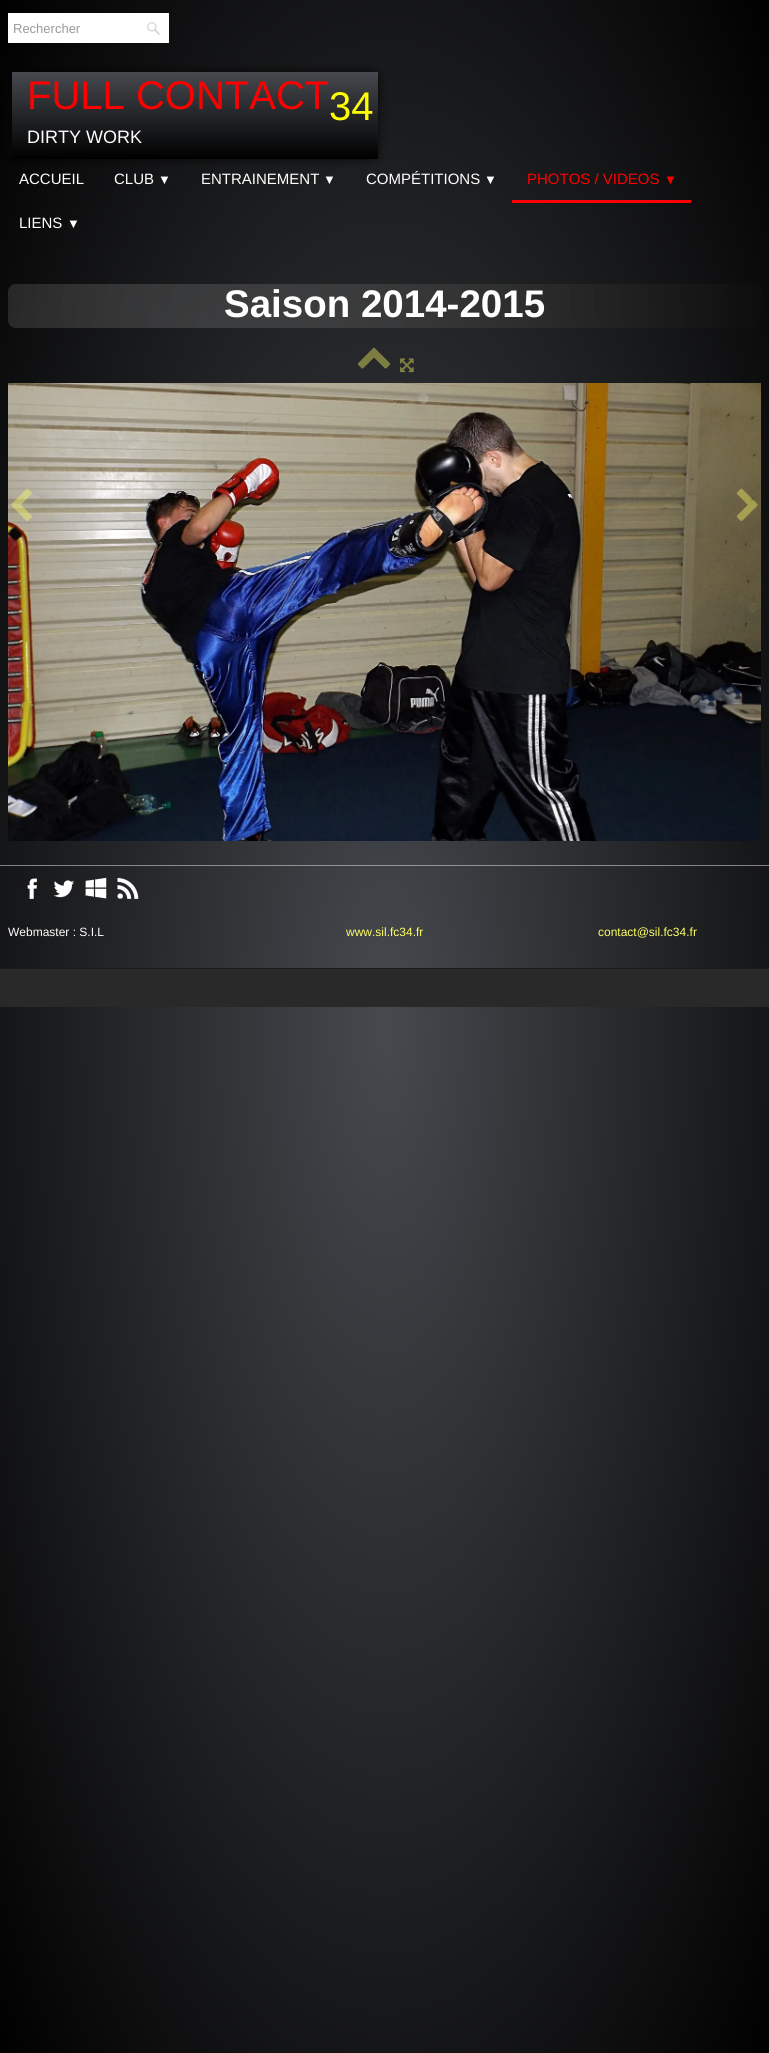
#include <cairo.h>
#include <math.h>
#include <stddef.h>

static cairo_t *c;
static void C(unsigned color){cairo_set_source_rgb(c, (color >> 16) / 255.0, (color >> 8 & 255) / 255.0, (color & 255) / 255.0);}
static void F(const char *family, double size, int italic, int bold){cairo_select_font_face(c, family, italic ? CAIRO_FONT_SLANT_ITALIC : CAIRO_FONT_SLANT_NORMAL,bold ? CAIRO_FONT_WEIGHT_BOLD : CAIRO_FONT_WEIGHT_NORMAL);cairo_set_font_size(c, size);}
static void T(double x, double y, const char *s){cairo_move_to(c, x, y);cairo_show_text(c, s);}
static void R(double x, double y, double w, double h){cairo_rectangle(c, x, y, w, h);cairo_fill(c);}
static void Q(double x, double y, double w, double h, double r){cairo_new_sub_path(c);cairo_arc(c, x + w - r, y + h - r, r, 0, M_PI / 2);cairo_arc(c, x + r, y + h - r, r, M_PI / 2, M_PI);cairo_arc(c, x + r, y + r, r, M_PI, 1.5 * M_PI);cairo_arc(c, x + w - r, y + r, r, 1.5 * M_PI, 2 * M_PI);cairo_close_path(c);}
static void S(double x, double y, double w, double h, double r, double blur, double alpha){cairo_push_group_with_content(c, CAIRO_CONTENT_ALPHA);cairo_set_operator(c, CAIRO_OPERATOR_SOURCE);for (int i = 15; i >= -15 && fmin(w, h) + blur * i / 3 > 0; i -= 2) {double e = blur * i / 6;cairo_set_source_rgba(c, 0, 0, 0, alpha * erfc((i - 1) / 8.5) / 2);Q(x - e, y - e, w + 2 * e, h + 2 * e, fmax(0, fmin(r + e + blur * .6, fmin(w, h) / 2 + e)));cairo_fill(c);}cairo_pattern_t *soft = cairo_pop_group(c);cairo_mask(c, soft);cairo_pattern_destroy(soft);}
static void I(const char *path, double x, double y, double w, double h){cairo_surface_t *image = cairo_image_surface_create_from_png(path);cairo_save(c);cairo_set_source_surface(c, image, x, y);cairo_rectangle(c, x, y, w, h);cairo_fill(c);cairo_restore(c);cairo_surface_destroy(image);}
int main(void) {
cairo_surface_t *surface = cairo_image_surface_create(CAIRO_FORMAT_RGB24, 769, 2053);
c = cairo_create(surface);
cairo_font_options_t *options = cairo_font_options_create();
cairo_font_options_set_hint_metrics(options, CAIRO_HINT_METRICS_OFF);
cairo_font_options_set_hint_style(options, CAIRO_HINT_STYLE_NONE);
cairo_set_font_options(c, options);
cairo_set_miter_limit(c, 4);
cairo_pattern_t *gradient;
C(0xffffff);
cairo_paint(c);
gradient = cairo_pattern_create_radial(0,0,0,0,0,1);
cairo_pattern_set_matrix(gradient, &(cairo_matrix_t){1.0 / 544, 0, 0, 1.0 / 1452, -1.0 * 385 / 544, -1.0 * 1027 / 1452});
cairo_pattern_add_color_stop_rgba(gradient,0,0.275,0.286,0.306,1);
cairo_pattern_add_color_stop_rgba(gradient,1,0,0,0,1);
cairo_set_source(c,gradient);
cairo_pattern_destroy(gradient);
R(0,0,769,2053);
gradient = cairo_pattern_create_radial(0,0,0,0,0,1);
cairo_pattern_set_matrix(gradient, &(cairo_matrix_t){1.0 / 544, 0, 0, 1.0 / 1452, -1.0 * 385 / 544, -1.0 * 1027 / 1452});
cairo_pattern_add_color_stop_rgba(gradient,0,0.6,0.604,0.616,1);
cairo_pattern_add_color_stop_rgba(gradient,1,0.463,0.463,0.463,1);
cairo_set_source(c,gradient);
cairo_pattern_destroy(gradient);
R(0,865,769,1);
C(0xffffff);
R(8,13,161,30);
I("1.png",147,22,13,13);
F("Liberation Sans",13,0,0);
C(0x999999);
T(13,33,"Rechercher");
cairo_save(c);
cairo_set_fill_rule(c,CAIRO_FILL_RULE_EVEN_ODD);
cairo_new_path(c);
cairo_move_to(c,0,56);
cairo_line_to(c,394,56);
cairo_line_to(c,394,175);
cairo_line_to(c,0,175);
cairo_close_path(c);
cairo_move_to(c,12,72);
cairo_line_to(c,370,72);
cairo_curve_to(c,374.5,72,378,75.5,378,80);
cairo_line_to(c,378,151);
cairo_curve_to(c,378,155.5,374.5,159,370,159);
cairo_line_to(c,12,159);
cairo_curve_to(c,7.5,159,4,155.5,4,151);
cairo_line_to(c,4,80);
cairo_curve_to(c,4,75.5,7.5,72,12,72);
cairo_close_path(c);
cairo_clip(c);
C(0x000000);
S(4,72,374,87,8,5,.75);
cairo_restore(c);
gradient = cairo_pattern_create_linear(195,72,195,159);
cairo_pattern_add_color_stop_rgba(gradient,0,0.275,0.286,0.306,1);
cairo_pattern_add_color_stop_rgba(gradient,1,0,0,0,1);
cairo_set_source(c,gradient);
cairo_pattern_destroy(gradient);
R(12,72,366,87);
F("Liberation Sans",40,0,0);
C(0xff0000);
T(27,109,"FULL CONTACT");
C(0xffff00);
T(329,120,"34");
F("Liberation Sans",18,0,0);
C(0xffffff);
T(27,143,"DIRTY WORK");
F("Liberation Sans",15,0,0);
T(19,184,"ACCUEIL");
T(114,184,"CLUB");
F("Liberation Sans",13,0,0);
T(158,184,"▼");
F("Liberation Sans",15,0,0);
T(201,184,"ENTRAINEMENT");
F("Liberation Sans",13,0,0);
T(323,184,"▼");
F("Liberation Sans",15,0,0);
T(366,184,"COMPÉTITIONS");
F("Liberation Sans",13,0,0);
T(484,184,"▼");
C(0xff0000);
R(512,200,179,3);
F("Liberation Sans",15,0,0);
T(527,184,"PHOTOS / VIDEOS");
F("Liberation Sans",13,0,0);
T(664,184,"▼");
F("Liberation Sans",15,0,0);
C(0xffffff);
T(19,228,"LIENS");
F("Liberation Sans",13,0,0);
T(67,228,"▼");
gradient = cairo_pattern_create_linear(8,306,761,306);
cairo_pattern_add_color_stop_rgba(gradient,0,0.49,0.49,0.49,.25);
cairo_pattern_add_color_stop_rgba(gradient,1,0.051,0.051,0.051,1);
cairo_set_source(c,gradient);
cairo_pattern_destroy(gradient);
Q(8,284,753,44,8);
cairo_fill(c);
F("Liberation Sans",38.5,0,1);
C(0xffffff);
T(224,317,"Saison 2014-2015");
I("2.png",357,347,34,22);
I("3.png",400,358,14,15);
I("4.png",8,383,753,458);
I("5.png",11,488,21,33);
I("6.png",736,488,22,33);
I("7.png",27,878,10,21);
I("8.png",53,880,21,18);
I("9.png",85,877,22,22);
I("10.png",117,877,22,22);
F("Liberation Sans",12,0,0);
T(8,936,"Webmaster : S.I.L");
C(0xffff66);
T(346,936,"www.sil.fc34.fr");
T(598,936,"contact@sil.fc34.fr");
C(0x292929);
R(0,969,769,38);
C(0x1c1c1c);
R(0,968,769,1);
cairo_surface_write_to_png(surface, "o.png");
cairo_font_options_destroy(options);
cairo_destroy(c);
cairo_surface_destroy(surface);
return 0;
}
